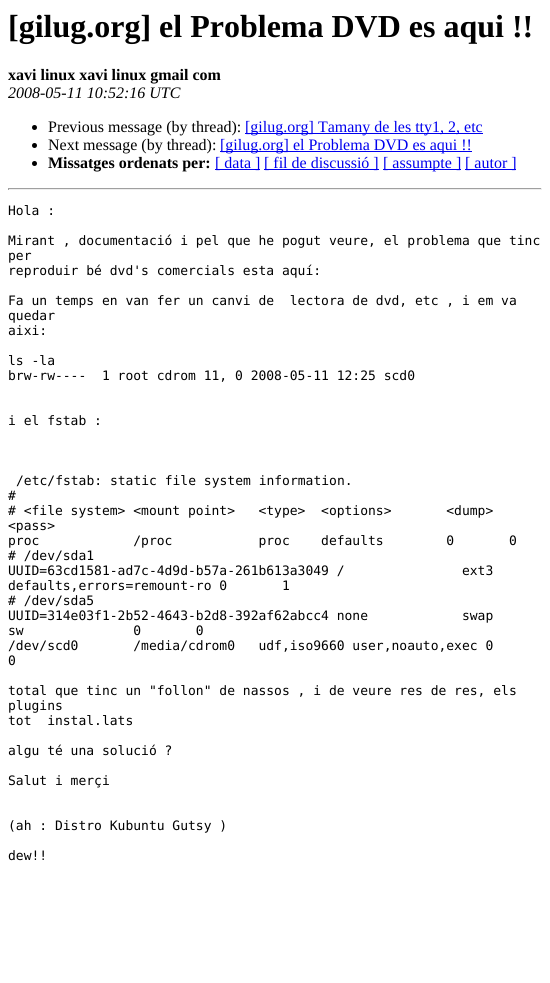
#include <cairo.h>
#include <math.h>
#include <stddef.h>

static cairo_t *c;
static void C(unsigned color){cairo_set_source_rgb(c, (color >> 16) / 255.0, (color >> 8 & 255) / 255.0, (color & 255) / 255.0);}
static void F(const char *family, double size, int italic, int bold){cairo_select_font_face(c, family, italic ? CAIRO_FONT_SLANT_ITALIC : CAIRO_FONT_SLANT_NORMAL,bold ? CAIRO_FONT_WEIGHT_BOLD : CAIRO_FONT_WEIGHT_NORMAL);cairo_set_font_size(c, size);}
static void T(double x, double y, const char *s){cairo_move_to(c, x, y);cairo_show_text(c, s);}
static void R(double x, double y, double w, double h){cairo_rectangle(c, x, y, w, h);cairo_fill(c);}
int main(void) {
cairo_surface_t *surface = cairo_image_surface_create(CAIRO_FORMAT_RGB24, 550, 983);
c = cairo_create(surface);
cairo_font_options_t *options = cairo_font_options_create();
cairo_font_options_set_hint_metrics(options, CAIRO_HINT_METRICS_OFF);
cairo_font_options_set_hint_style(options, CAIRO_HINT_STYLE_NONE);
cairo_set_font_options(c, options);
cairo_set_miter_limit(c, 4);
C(0xffffff);
cairo_paint(c);
F("Liberation Serif",32,0,1);
C(0x000000);
T(8,37,"[gilug.org] el Problema DVD es aqui !!");
F("Liberation Serif",16,0,1);
T(8,80,"xavi linux xavi linux gmail com");
F("Liberation Serif",16,1,0);
T(8,98,"2008-05-11 10:52:16 UTC");
cairo_new_path(c);
cairo_arc(c,34.5,127.5,2.5,0,2 * M_PI);
cairo_fill(c);
F("Liberation Serif",16,0,0);
T(48,132,"Previous message (by thread):");
C(0x0000ee);
R(245,133,238,1);
T(245,132,"[gilug.org] Tamany de les tty1, 2, etc");
C(0x000000);
cairo_new_path(c);
cairo_arc(c,34.5,145.5,2.5,0,2 * M_PI);
cairo_fill(c);
T(48,150,"Next message (by thread):");
C(0x0000ee);
R(220,151,252,1);
T(220,150,"[gilug.org] el Problema DVD es aqui !!");
C(0x000000);
cairo_new_path(c);
cairo_arc(c,34.5,163.5,2.5,0,2 * M_PI);
cairo_fill(c);
F("Liberation Serif",16,0,1);
T(48,168,"Missatges ordenats per:");
C(0x0000ee);
R(215,169,45,1);
F("Liberation Serif",16,0,0);
T(215,168,"[ data ]");
R(264,169,115,1);
T(264,168,"[ fil de discussió ]");
R(383,169,78,1);
T(383,168,"[ assumpte ]");
R(465,169,51,1);
T(465,168,"[ autor ]");
C(0x9f9f9f);
R(8,188,534,1);
C(0xeeeeee);
R(541,188,1,2);
R(8,189,534,1);
C(0x9f9f9f);
R(8,188,1,2);
F("DejaVu Sans Mono",13,0,0);
C(0x000000);
T(8,215,"Hola :");
T(8,245,"Mirant , documentació i pel que he pogut veure, el problema que tinc");
T(8,260,"per");
T(8,275,"reproduir bé dvd's comercials esta aquí:");
T(8,305,"Fa un temps en van fer un canvi de  lectora de dvd, etc , i em va");
T(8,320,"quedar");
T(8,335,"aixi:");
T(8,365,"ls -la");
T(8,380,"brw-rw----  1 root cdrom 11, 0 2008-05-11 12:25 scd0");
T(8,425,"i el fstab :");
T(16,485,"/etc/fstab: static file system information.");
T(8,500,"#");
T(8,515,"# <file system> <mount point>   <type>  <options>       <dump>");
T(8,530,"<pass>");
T(8,545,"proc            /proc           proc    defaults        0       0");
T(8,560,"# /dev/sda1");
T(8,575,"UUID=63cd1581-ad7c-4d9d-b57a-261b613a3049 /               ext3");
T(8,590,"defaults,errors=remount-ro 0       1");
T(8,605,"# /dev/sda5");
T(8,620,"UUID=314e03f1-2b52-4643-b2d8-392af62abcc4 none            swap");
T(8,635,"sw              0       0");
T(8,650,"/dev/scd0       /media/cdrom0   udf,iso9660 user,noauto,exec 0");
T(8,665,"0");
T(8,695,"total que tinc un \"follon\" de nassos , i de veure res de res, els");
T(8,710,"plugins");
T(8,725,"tot  instal.lats");
T(8,755,"algu té una solució ?");
T(8,785,"Salut i merçi");
T(8,830,"(ah : Distro Kubuntu Gutsy )");
T(8,860,"dew!!");
cairo_surface_write_to_png(surface, "o.png");
cairo_font_options_destroy(options);
cairo_destroy(c);
cairo_surface_destroy(surface);
return 0;
}
